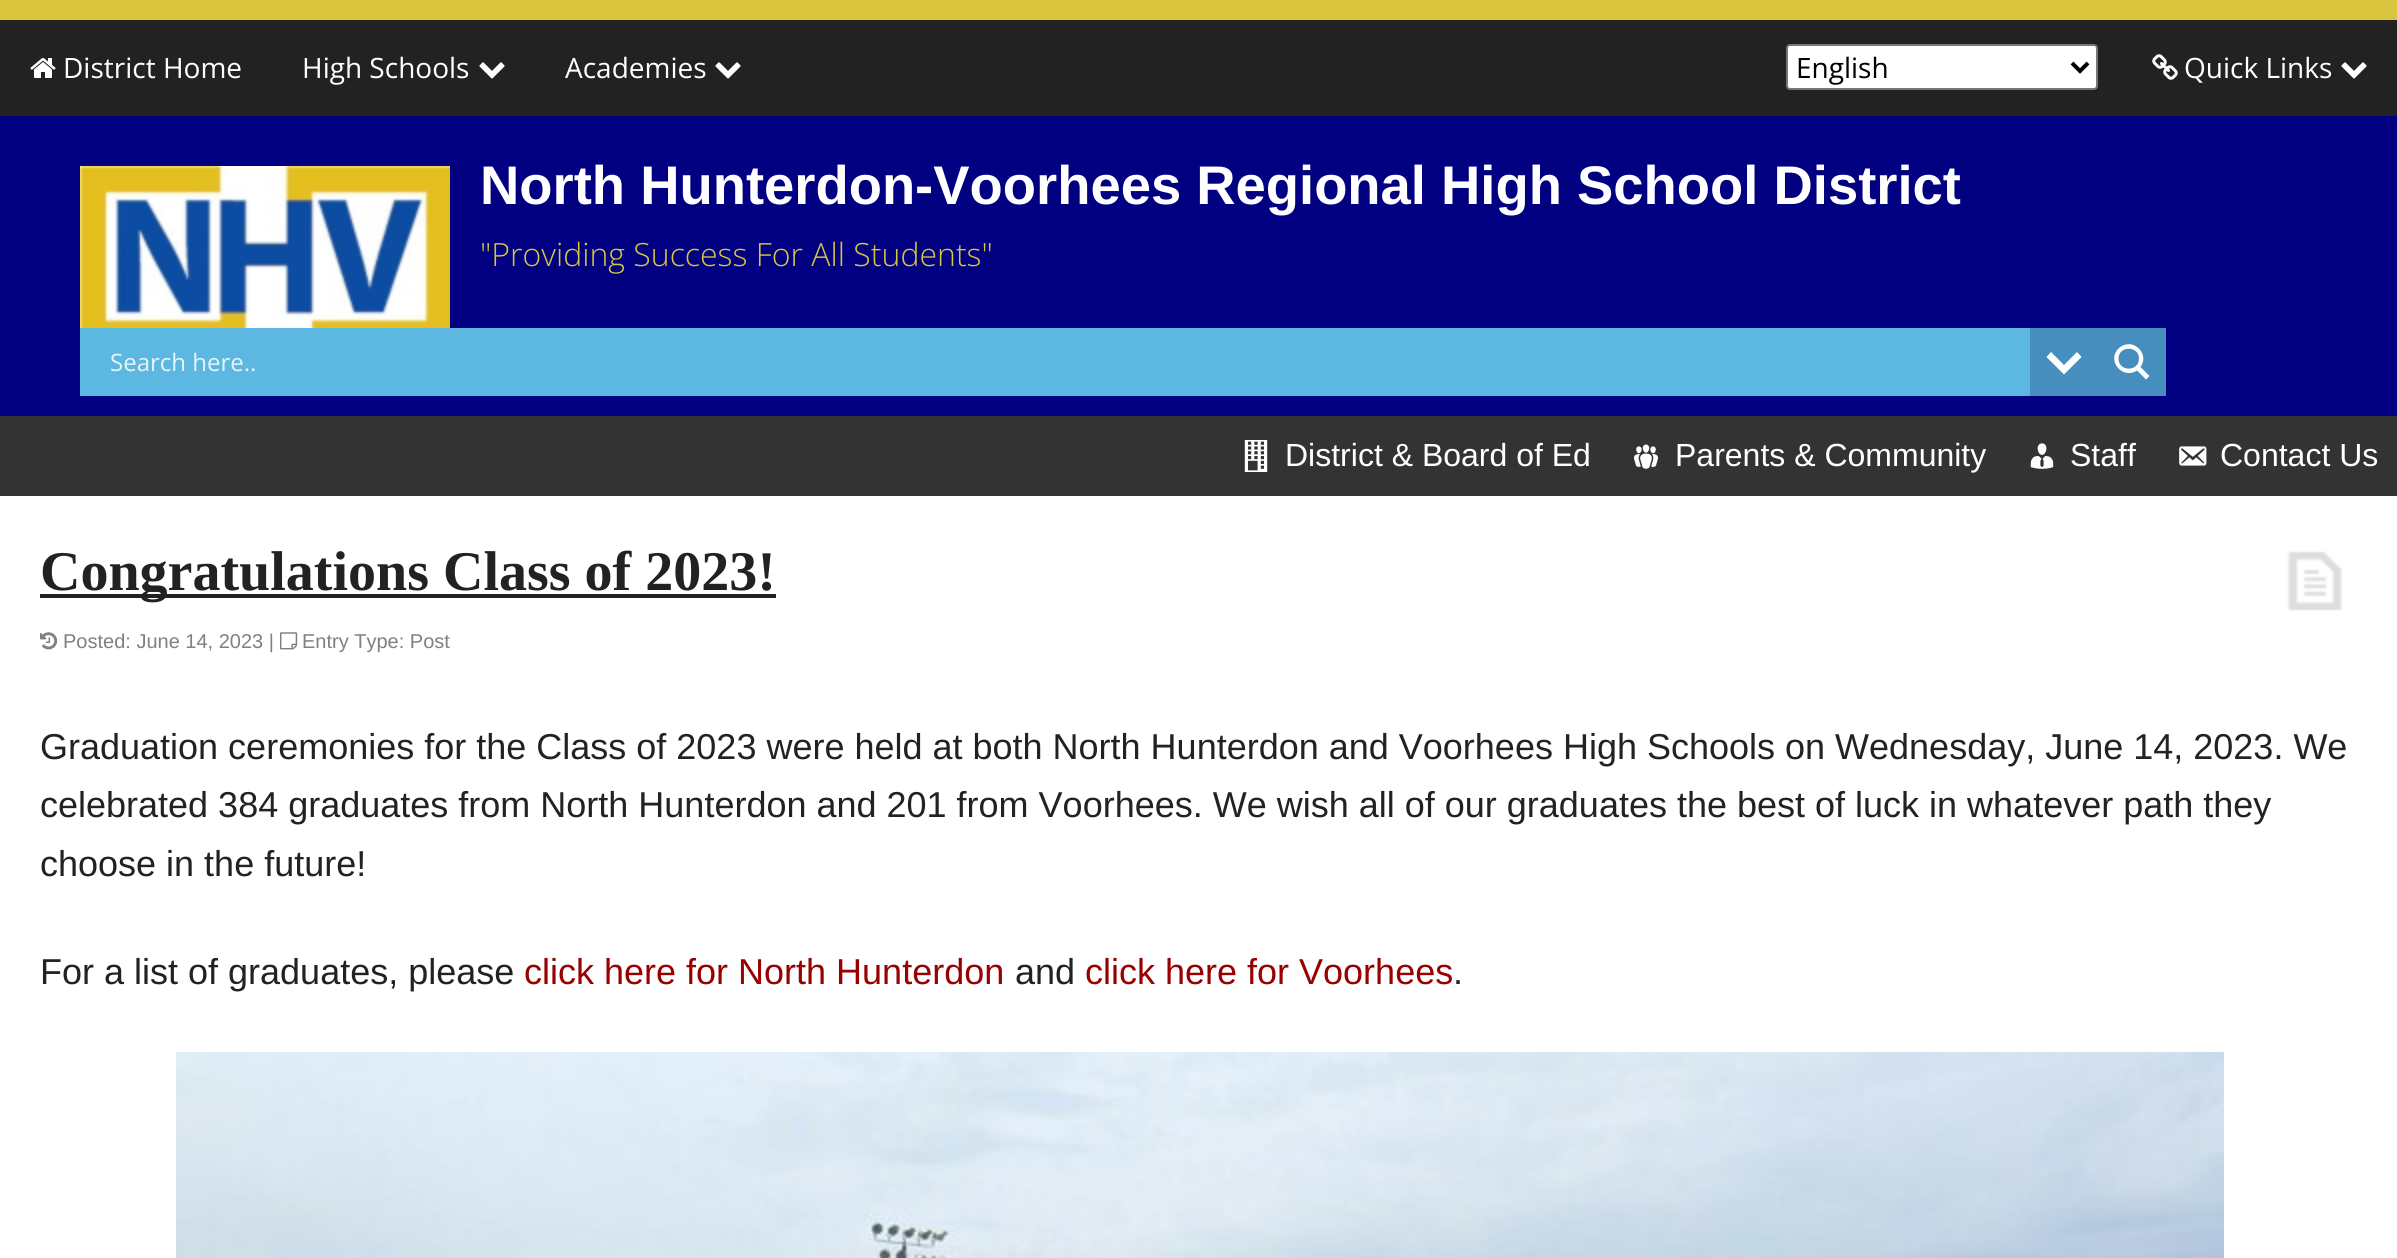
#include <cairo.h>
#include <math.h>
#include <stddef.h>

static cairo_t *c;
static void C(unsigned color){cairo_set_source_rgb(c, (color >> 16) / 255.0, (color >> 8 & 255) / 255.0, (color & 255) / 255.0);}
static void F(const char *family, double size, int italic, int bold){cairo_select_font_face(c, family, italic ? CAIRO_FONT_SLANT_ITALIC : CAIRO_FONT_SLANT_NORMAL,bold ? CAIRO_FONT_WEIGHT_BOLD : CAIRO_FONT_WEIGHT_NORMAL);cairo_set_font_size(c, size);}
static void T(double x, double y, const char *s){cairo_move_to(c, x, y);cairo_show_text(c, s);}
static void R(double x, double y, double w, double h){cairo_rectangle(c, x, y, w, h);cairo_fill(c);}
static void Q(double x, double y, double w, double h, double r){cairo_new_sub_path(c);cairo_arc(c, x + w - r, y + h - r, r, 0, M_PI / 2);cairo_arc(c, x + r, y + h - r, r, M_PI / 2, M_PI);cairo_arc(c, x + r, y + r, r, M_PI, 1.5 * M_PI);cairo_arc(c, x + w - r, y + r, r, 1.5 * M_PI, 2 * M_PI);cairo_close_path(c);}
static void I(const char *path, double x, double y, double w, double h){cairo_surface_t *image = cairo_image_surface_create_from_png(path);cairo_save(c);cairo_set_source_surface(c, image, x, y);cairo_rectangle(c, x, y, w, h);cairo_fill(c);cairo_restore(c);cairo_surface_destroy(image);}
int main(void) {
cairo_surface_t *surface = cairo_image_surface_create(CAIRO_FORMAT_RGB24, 2397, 1258);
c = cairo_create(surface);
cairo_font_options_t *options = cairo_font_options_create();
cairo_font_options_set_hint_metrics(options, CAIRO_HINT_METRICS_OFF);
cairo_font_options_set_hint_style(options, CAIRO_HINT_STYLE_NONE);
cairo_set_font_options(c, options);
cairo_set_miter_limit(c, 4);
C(0xffffff);
cairo_paint(c);
C(0xdac53e);
R(0,0,2397,20);
C(0x222222);
R(0,20,2397,96);
I("1.png",30,58,26,20);
F("Open Sans",28,0,0);
C(0xffffff);
T(63,78,"District Home");
T(302,78,"High Schools");
I("2.png",479,62,26,17);
T(565,78,"Academies");
I("2.png",715,62,26,17);
Q(1787,45,310,44,3);
cairo_fill_preserve(c);
C(0x767676);
cairo_stroke(c);
cairo_new_path(c);
cairo_move_to(c,2072,63);
cairo_line_to(c,2080,71);
cairo_line_to(c,2088,63);
C(0x000000);
cairo_set_line_width(c,4);
cairo_stroke(c);
T(1796,78,"English");
I("3.png",2152,54,26,26);
C(0xffffff);
T(2184,78,"Quick Links");
I("2.png",2341,62,26,17);
C(0x000080);
R(0,116,2397,300);
I("4.png",80,166,370,162);
F("Liberation Sans",54.4,0,1);
C(0xffffff);
T(480,204,"North Hunterdon-Voorhees Regional High School District");
F("Open Sans Light",32,0,0);
C(0xdac53e);
T(480,266,"\"Providing Success For All Students\"");
C(0x5cb7e1);
R(80,328,1950,68);
C(0x468ebe);
R(2030,328,136,68);
C(0xffffff);
cairo_new_path(c);
cairo_move_to(c,2077,352);
cairo_line_to(c,2081.5,357);
cairo_line_to(c,2064,374.5);
cairo_line_to(c,2046.5,357);
cairo_line_to(c,2051,352);
cairo_line_to(c,2064,365);
cairo_close_path(c);
cairo_fill(c);
F("Open Sans",24,0,0);
C(0xe7f4fb);
T(110,371,"Search here..");
C(0xffffff);
cairo_new_path(c);
cairo_move_to(c,2149.5,376);
cairo_line_to(c,2140.5,367);
cairo_curve_to(c,2150.5,353,2131.5,336,2118.5,348.5);
cairo_curve_to(c,2106,361,2123,380,2137,370.5);
cairo_line_to(c,2146,379.5);
cairo_close_path(c);
cairo_move_to(c,2118.5,358.5);
cairo_curve_to(c,2118.5,345.5,2139,345.5,2139,358.5);
cairo_curve_to(c,2139,372,2118.5,372,2118.5,358.5);
cairo_close_path(c);
cairo_fill(c);
C(0x333333);
R(0,416,2397,80);
I("5.png",1244,440,24,32);
F("Liberation Sans",32,0,0);
C(0xffffff);
T(1285,466,"District & Board of Ed");
I("6.png",1634,444,24,25);
T(1675,466,"Parents & Community");
I("7.png",2030,443,24,26);
T(2070,466,"Staff");
I("8.png",2179,446,28,20);
T(2220,466,"Contact Us");
C(0x222222);
R(40,594,736,4);
F("Liberation Serif",56,0,1);
T(40,590,"Congratulations Class of 2023!");
I("9.png",40,632,18,18);
F("Liberation Sans",20,0,0);
C(0x808080);
T(63,648,"Posted: June 14, 2023 |");
I("10.png",280,632,18,18);
T(302,648,"Entry Type: Post");
I("11.png",2287,551,56,60);
F("Liberation Sans",36,0,0);
C(0x222222);
T(40,759,"Graduation ceremonies for the Class of 2023 were held at both North Hunterdon and Voorhees High Schools on Wednesday, June 14, 2023. We");
T(40,817,"celebrated 384 graduates from North Hunterdon and 201 from Voorhees. We wish all of our graduates the best of luck in whatever path they");
T(40,876,"choose in the future!");
T(40,984,"For a list of graduates, please");
C(0x990000);
T(524,984,"click here for North Hunterdon");
C(0x222222);
T(1015,984,"and");
C(0x990000);
T(1085,984,"click here for Voorhees");
C(0x222222);
T(1453,984,".");
I("12.png",176,1052,2048,206);
cairo_surface_write_to_png(surface, "o.png");
cairo_font_options_destroy(options);
cairo_destroy(c);
cairo_surface_destroy(surface);
return 0;
}
